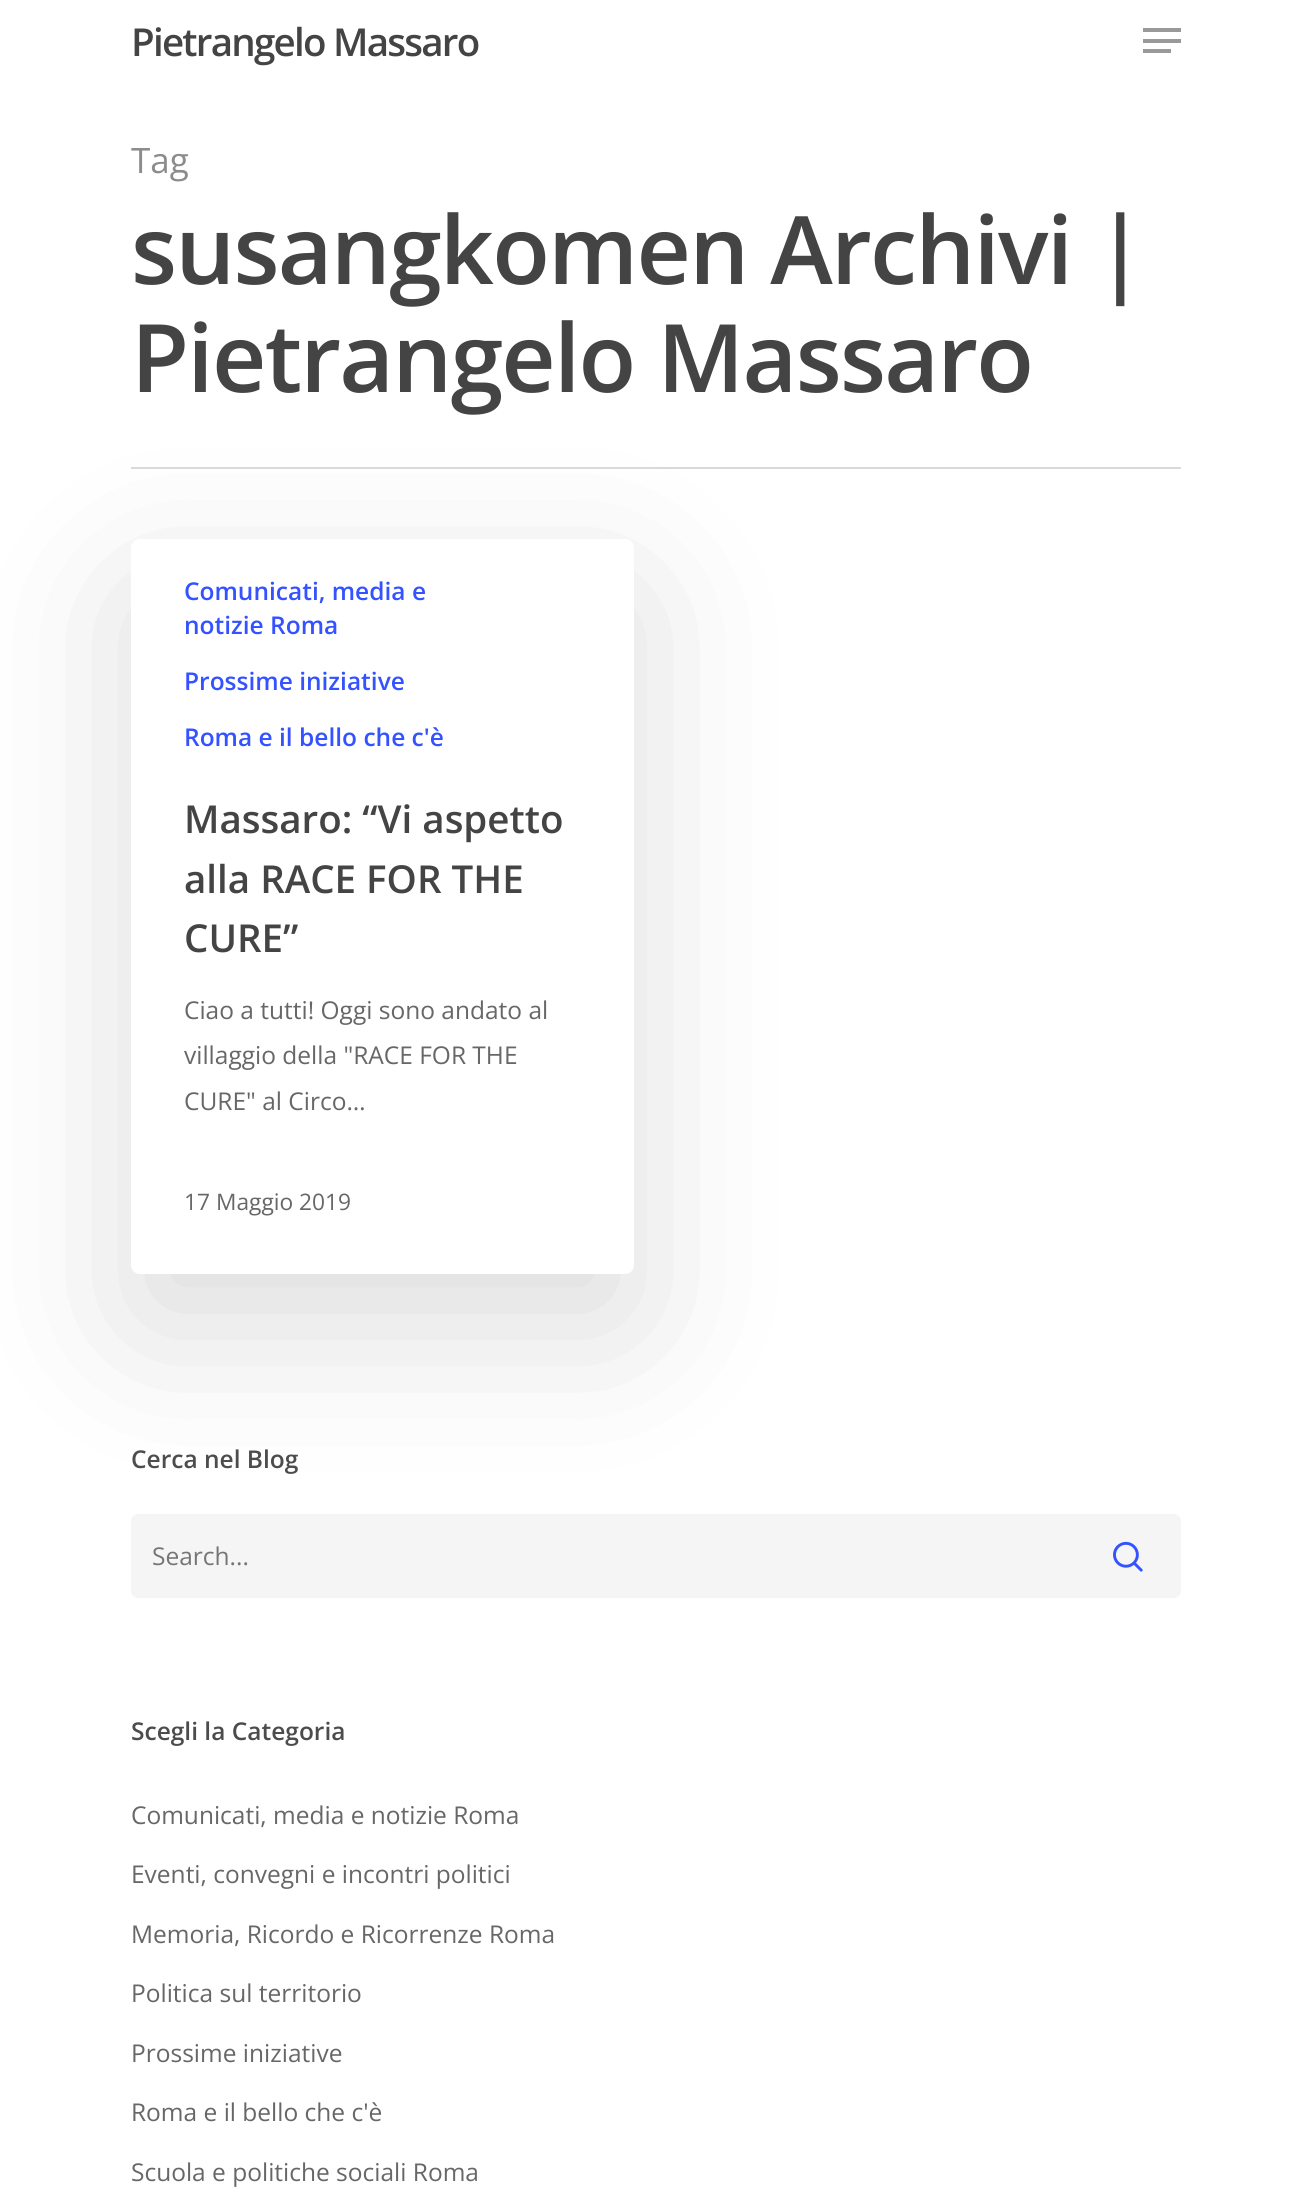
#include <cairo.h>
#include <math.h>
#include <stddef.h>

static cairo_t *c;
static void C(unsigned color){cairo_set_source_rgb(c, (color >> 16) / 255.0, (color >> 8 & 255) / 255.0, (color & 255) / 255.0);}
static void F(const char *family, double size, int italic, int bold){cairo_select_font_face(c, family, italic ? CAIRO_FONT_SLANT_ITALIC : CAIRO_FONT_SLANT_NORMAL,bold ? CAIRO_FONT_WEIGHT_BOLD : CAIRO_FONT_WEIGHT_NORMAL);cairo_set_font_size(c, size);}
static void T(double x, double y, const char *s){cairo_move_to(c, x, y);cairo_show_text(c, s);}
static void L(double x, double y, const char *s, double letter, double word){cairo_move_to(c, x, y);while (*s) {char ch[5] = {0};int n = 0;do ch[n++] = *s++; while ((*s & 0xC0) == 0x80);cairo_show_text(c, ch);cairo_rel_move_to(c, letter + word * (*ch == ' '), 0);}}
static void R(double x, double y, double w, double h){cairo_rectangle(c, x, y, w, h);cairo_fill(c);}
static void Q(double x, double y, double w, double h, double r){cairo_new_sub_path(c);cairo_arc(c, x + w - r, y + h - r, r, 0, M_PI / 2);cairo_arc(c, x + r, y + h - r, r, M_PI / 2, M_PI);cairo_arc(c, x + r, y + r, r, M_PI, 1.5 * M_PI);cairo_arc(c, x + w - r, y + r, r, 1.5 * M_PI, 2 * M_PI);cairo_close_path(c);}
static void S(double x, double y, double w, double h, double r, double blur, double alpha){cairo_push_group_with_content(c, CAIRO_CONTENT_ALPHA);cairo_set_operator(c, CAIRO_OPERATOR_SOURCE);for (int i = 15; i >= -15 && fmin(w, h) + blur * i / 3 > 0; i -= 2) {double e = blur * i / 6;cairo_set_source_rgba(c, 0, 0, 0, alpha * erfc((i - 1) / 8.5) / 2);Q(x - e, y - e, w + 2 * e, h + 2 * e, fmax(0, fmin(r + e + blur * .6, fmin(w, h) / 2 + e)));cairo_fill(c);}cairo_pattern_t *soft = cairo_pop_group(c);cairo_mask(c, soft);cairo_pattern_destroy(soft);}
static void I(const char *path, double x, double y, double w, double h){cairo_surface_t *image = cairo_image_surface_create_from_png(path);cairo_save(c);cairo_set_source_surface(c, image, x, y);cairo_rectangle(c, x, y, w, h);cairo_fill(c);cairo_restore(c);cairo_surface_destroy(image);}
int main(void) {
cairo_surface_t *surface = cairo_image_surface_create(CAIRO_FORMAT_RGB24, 1311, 2189);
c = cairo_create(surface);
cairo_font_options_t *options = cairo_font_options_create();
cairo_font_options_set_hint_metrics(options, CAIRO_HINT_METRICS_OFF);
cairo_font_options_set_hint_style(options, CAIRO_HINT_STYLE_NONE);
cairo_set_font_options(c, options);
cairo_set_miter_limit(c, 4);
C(0xffffff);
cairo_paint(c);
F("Open Sans SemiBold",38.5,0,0);
C(0x444444);
L(131,56,"Pietrangelo Massaro",-1.75,0);
C(0x999999);
R(1143,28,38,4);
R(1143,49,28,4);
R(1143,39,38,4);
C(0x000000);
S(131,592,503,735,9,79,.14);
C(0xd9d9d9);
R(131,467,1050,2);
F("Open Sans",35,0,0);
C(0x8c8c8c);
T(131,173,"Tag");
F("Open Sans SemiBold",94.5,0,0);
C(0x444444);
L(131,284,"susangkomen Archivi |",-1.75,0);
L(131,392,"Pietrangelo Massaro",-1.75,0);
C(0xffffff);
cairo_new_path(c);
cairo_move_to(c,140,539);
cairo_line_to(c,625,539);
cairo_curve_to(c,630,539,634,543,634,548);
cairo_line_to(c,634,770);
cairo_line_to(c,131,770);
cairo_line_to(c,131,548);
cairo_curve_to(c,131,543,135,539,140,539);
cairo_close_path(c);
cairo_fill(c);
F("Open Sans SemiBold",24.5,0,0);
C(0x3452ff);
T(184,600,"Comunicati, media e");
T(184,634,"notizie Roma");
T(184,690,"Prossime iniziative");
T(184,746,"Roma e il bello che c'è");
C(0xffffff);
cairo_new_path(c);
cairo_move_to(c,131,770);
cairo_line_to(c,634,770);
cairo_line_to(c,634,1265);
cairo_curve_to(c,634,1270,630,1274,625,1274);
cairo_line_to(c,140,1274);
cairo_curve_to(c,135,1274,131,1270,131,1265);
cairo_close_path(c);
cairo_fill(c);
F("Open Sans SemiBold",38.5,0,0);
C(0x444444);
T(184,833,"Massaro: “Vi aspetto");
T(184,893,"alla RACE FOR THE");
T(184,952,"CURE”");
F("Open Sans",24.5,0,0);
C(0x676767);
T(184,1019,"Ciao a tutti! Oggi sono andato al");
T(184,1064,"villaggio della \"RACE FOR THE");
T(184,1110,"CURE\" al Circo…");
F("Open Sans",22.75,0,0);
T(184,1210,"17 Maggio 2019");
F("Open Sans SemiBold",24.5,0,0);
C(0x4c4c4c);
T(131,1468,"Cerca nel Blog");
C(0xf5f5f5);
Q(131,1514,1050,84,7);
cairo_fill(c);
F("Open Sans",24.5,0,0);
C(0x757575);
T(152,1565,"Search...");
I("1.png",1113,1541,30,31);
F("Open Sans SemiBold",24.5,0,0);
C(0x4c4c4c);
T(131,1740,"Scegli la Categoria");
F("Open Sans",24.5,0,0);
C(0x676767);
T(131,1824,"Comunicati, media e notizie Roma");
T(131,1883,"Eventi, convegni e incontri politici");
T(131,1943,"Memoria, Ricordo e Ricorrenze Roma");
T(131,2002,"Politica sul territorio");
T(131,2062,"Prossime iniziative");
T(131,2121,"Roma e il bello che c'è");
T(131,2181,"Scuola e politiche sociali Roma");
cairo_surface_write_to_png(surface, "o.png");
cairo_font_options_destroy(options);
cairo_destroy(c);
cairo_surface_destroy(surface);
return 0;
}
